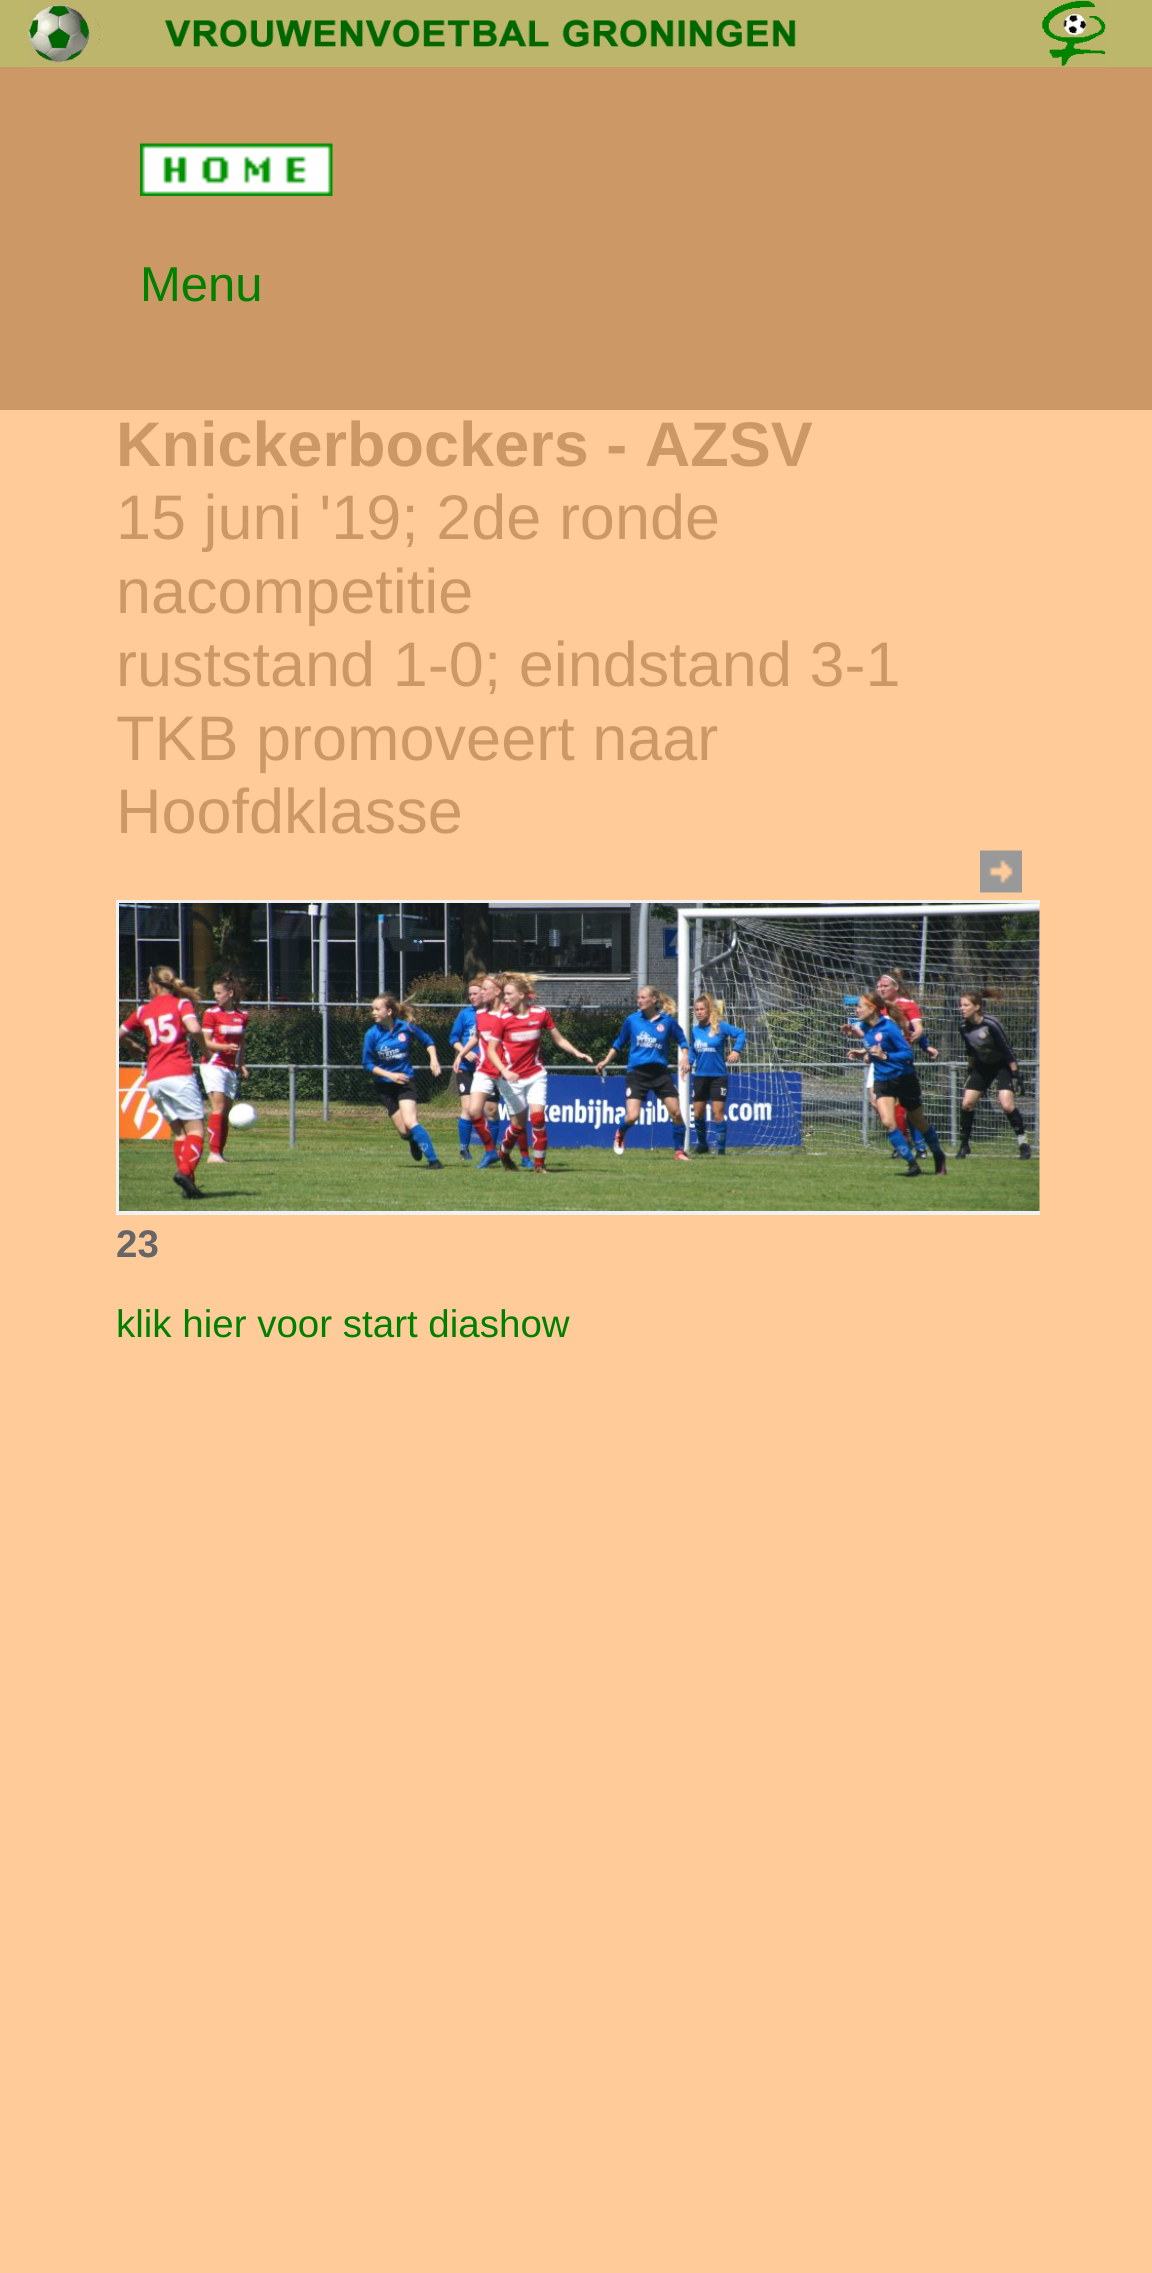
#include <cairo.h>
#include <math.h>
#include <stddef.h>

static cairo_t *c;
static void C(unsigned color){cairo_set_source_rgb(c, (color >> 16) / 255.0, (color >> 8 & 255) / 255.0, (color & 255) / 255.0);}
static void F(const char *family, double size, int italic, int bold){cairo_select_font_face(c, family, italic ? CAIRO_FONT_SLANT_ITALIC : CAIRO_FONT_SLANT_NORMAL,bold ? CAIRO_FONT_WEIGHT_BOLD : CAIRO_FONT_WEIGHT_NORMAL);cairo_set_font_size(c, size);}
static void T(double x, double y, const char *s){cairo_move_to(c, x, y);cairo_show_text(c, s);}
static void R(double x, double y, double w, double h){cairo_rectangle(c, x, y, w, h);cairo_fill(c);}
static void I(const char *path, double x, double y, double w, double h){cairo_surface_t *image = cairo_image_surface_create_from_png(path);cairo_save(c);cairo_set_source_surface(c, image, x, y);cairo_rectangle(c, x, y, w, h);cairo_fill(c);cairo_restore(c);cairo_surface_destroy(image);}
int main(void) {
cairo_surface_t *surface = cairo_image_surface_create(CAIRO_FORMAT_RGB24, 1152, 2273);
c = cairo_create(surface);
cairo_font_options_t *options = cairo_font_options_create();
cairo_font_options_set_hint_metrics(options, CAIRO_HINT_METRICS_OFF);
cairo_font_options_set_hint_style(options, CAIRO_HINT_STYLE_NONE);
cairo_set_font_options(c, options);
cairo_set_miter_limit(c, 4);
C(0xffcc99);
cairo_paint(c);
C(0xbdb76b);
R(0,0,1152,67);
I("1.png",28,0,1078,66);
C(0xcc9966);
R(0,67,1152,343);
I("2.png",140,143,193,53);
F("Liberation Sans",49,0,0);
C(0x008000);
T(140,301,"Menu");
F("Liberation Sans",63,0,1);
C(0xcc9966);
T(116,466,"Knickerbockers - AZSV");
F("Liberation Sans",63,0,0);
T(116,539,"15 juni '19; 2de ronde");
T(116,613,"nacompetitie");
T(116,686,"ruststand 1-0; eindstand 3-1");
T(116,760,"TKB promoveert naar");
T(116,833,"Hoofdklasse");
I("3.png",980,850,42,43);
cairo_save(c);
cairo_rectangle(c,116,410,924,1113);
cairo_clip(c);
cairo_rectangle(c,118,902,927,311);
C(0xf1f1f1);
cairo_set_line_width(c,4);
cairo_stroke(c);
cairo_restore(c);
I("4.png",119,903,921,308);
F("Liberation Sans",38.5,0,1);
C(0x666666);
T(116,1257,"23");
F("Liberation Sans",38.5,0,0);
C(0x008000);
T(116,1337,"klik hier voor start diashow");
cairo_surface_write_to_png(surface, "o.png");
cairo_font_options_destroy(options);
cairo_destroy(c);
cairo_surface_destroy(surface);
return 0;
}
